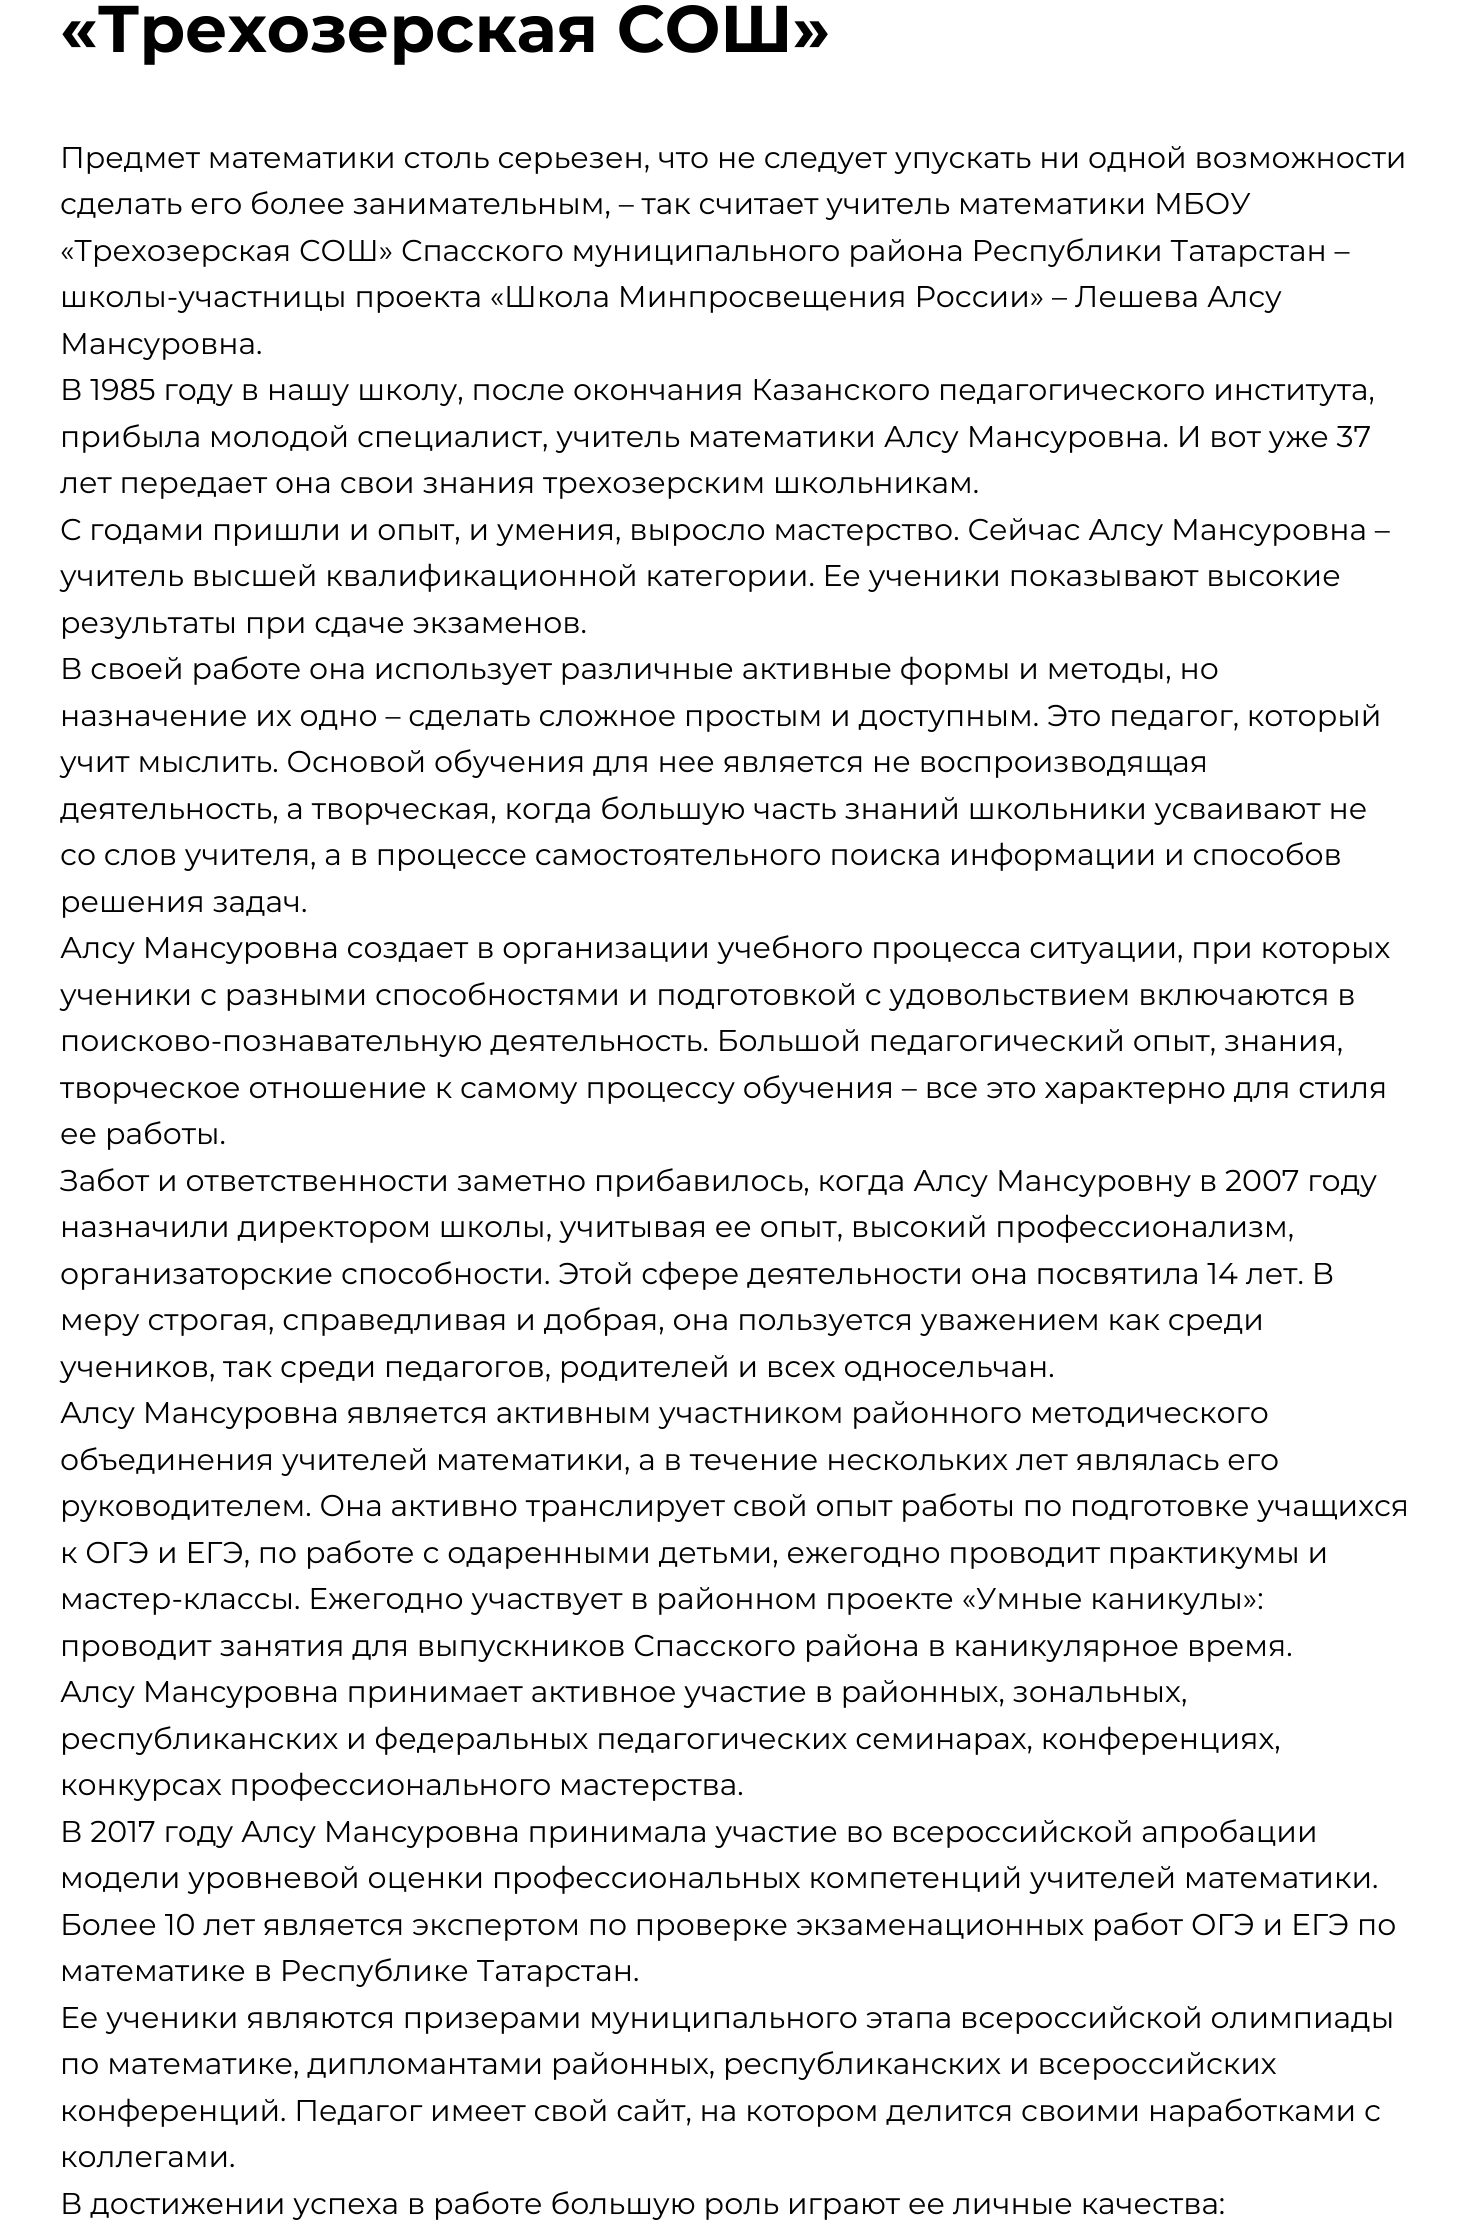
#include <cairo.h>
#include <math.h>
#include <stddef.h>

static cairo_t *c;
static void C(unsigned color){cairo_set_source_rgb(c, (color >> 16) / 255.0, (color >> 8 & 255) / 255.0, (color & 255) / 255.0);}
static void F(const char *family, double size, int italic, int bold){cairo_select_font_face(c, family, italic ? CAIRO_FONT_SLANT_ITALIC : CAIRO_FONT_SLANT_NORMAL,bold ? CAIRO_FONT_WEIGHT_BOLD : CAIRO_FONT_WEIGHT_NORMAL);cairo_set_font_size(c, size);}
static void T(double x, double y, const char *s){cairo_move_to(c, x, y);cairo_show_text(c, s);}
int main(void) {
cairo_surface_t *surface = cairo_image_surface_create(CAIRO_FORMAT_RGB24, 1469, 2227);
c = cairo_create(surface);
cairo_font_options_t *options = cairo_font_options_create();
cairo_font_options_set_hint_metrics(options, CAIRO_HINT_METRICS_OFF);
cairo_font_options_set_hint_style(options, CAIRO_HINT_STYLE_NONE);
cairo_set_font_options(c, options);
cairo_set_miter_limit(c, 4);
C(0xffffff);
cairo_paint(c);
F("Montserrat",66,0,1);
C(0x000000);
T(60,52,"«Трехозерская СОШ»");
F("Montserrat",30,0,0);
T(60,168,"Предмет математики столь серьезен, что не следует упускать ни одной возможности");
T(60,214,"сделать его более занимательным, – так считает учитель математики МБОУ");
T(60,261,"«Трехозерская СОШ» Спасского муниципального района Республики Татарстан –");
T(60,307,"школы-участницы проекта «Школа Минпросвещения России» – Лешева Алсу");
T(60,354,"Мансуровна.");
T(60,400,"В 1985 году в нашу школу, после окончания Казанского педагогического института,");
T(60,447,"прибыла молодой специалист, учитель математики Алсу Мансуровна. И вот уже 37");
T(60,493,"лет передает она свои знания трехозерским школьникам.");
T(60,540,"С годами пришли и опыт, и умения, выросло мастерство. Сейчас Алсу Мансуровна –");
T(60,586,"учитель высшей квалификационной категории. Ее ученики показывают высокие");
T(60,633,"результаты при сдаче экзаменов.");
T(60,679,"В своей работе она использует различные активные формы и методы, но");
T(60,726,"назначение их одно – сделать сложное простым и доступным. Это педагог, который");
T(60,772,"учит мыслить. Основой обучения для нее является не воспроизводящая");
T(60,819,"деятельность, а творческая, когда большую часть знаний школьники усваивают не");
T(60,865,"со слов учителя, а в процессе самостоятельного поиска информации и способов");
T(60,912,"решения задач.");
T(60,958,"Алсу Мансуровна создает в организации учебного процесса ситуации, при которых");
T(60,1005,"ученики с разными способностями и подготовкой с удовольствием включаются в");
T(60,1051,"поисково-познавательную деятельность. Большой педагогический опыт, знания,");
T(60,1098,"творческое отношение к самому процессу обучения – все это характерно для стиля");
T(60,1144,"ее работы.");
T(60,1191,"Забот и ответственности заметно прибавилось, когда Алсу Мансуровну в 2007 году");
T(60,1237,"назначили директором школы, учитывая ее опыт, высокий профессионализм,");
T(60,1284,"организаторские способности. Этой сфере деятельности она посвятила 14 лет. В");
T(60,1330,"меру строгая, справедливая и добрая, она пользуется уважением как среди");
T(60,1377,"учеников, так среди педагогов, родителей и всех односельчан.");
T(60,1423,"Алсу Мансуровна является активным участником районного методического");
T(60,1470,"объединения учителей математики, а в течение нескольких лет являлась его");
T(60,1516,"руководителем. Она активно транслирует свой опыт работы по подготовке учащихся");
T(60,1563,"к ОГЭ и ЕГЭ, по работе с одаренными детьми, ежегодно проводит практикумы и");
T(60,1609,"мастер-классы. Ежегодно участвует в районном проекте «Умные каникулы»:");
T(60,1656,"проводит занятия для выпускников Спасского района в каникулярное время.");
T(60,1702,"Алсу Мансуровна принимает активное участие в районных, зональных,");
T(60,1749,"республиканских и федеральных педагогических семинарах, конференциях,");
T(60,1795,"конкурсах профессионального мастерства.");
T(60,1842,"В 2017 году Алсу Мансуровна принимала участие во всероссийской апробации");
T(60,1888,"модели уровневой оценки профессиональных компетенций учителей математики.");
T(60,1935,"Более 10 лет является экспертом по проверке экзаменационных работ ОГЭ и ЕГЭ по");
T(60,1981,"математике в Республике Татарстан.");
T(60,2028,"Ее ученики являются призерами муниципального этапа всероссийской олимпиады");
T(60,2074,"по математике, дипломантами районных, республиканских и всероссийских");
T(60,2121,"конференций. Педагог имеет свой сайт, на котором делится своими наработками с");
T(60,2167,"коллегами.");
T(60,2214,"В достижении успеха в работе большую роль играют ее личные качества:");
cairo_surface_write_to_png(surface, "o.png");
cairo_font_options_destroy(options);
cairo_destroy(c);
cairo_surface_destroy(surface);
return 0;
}
